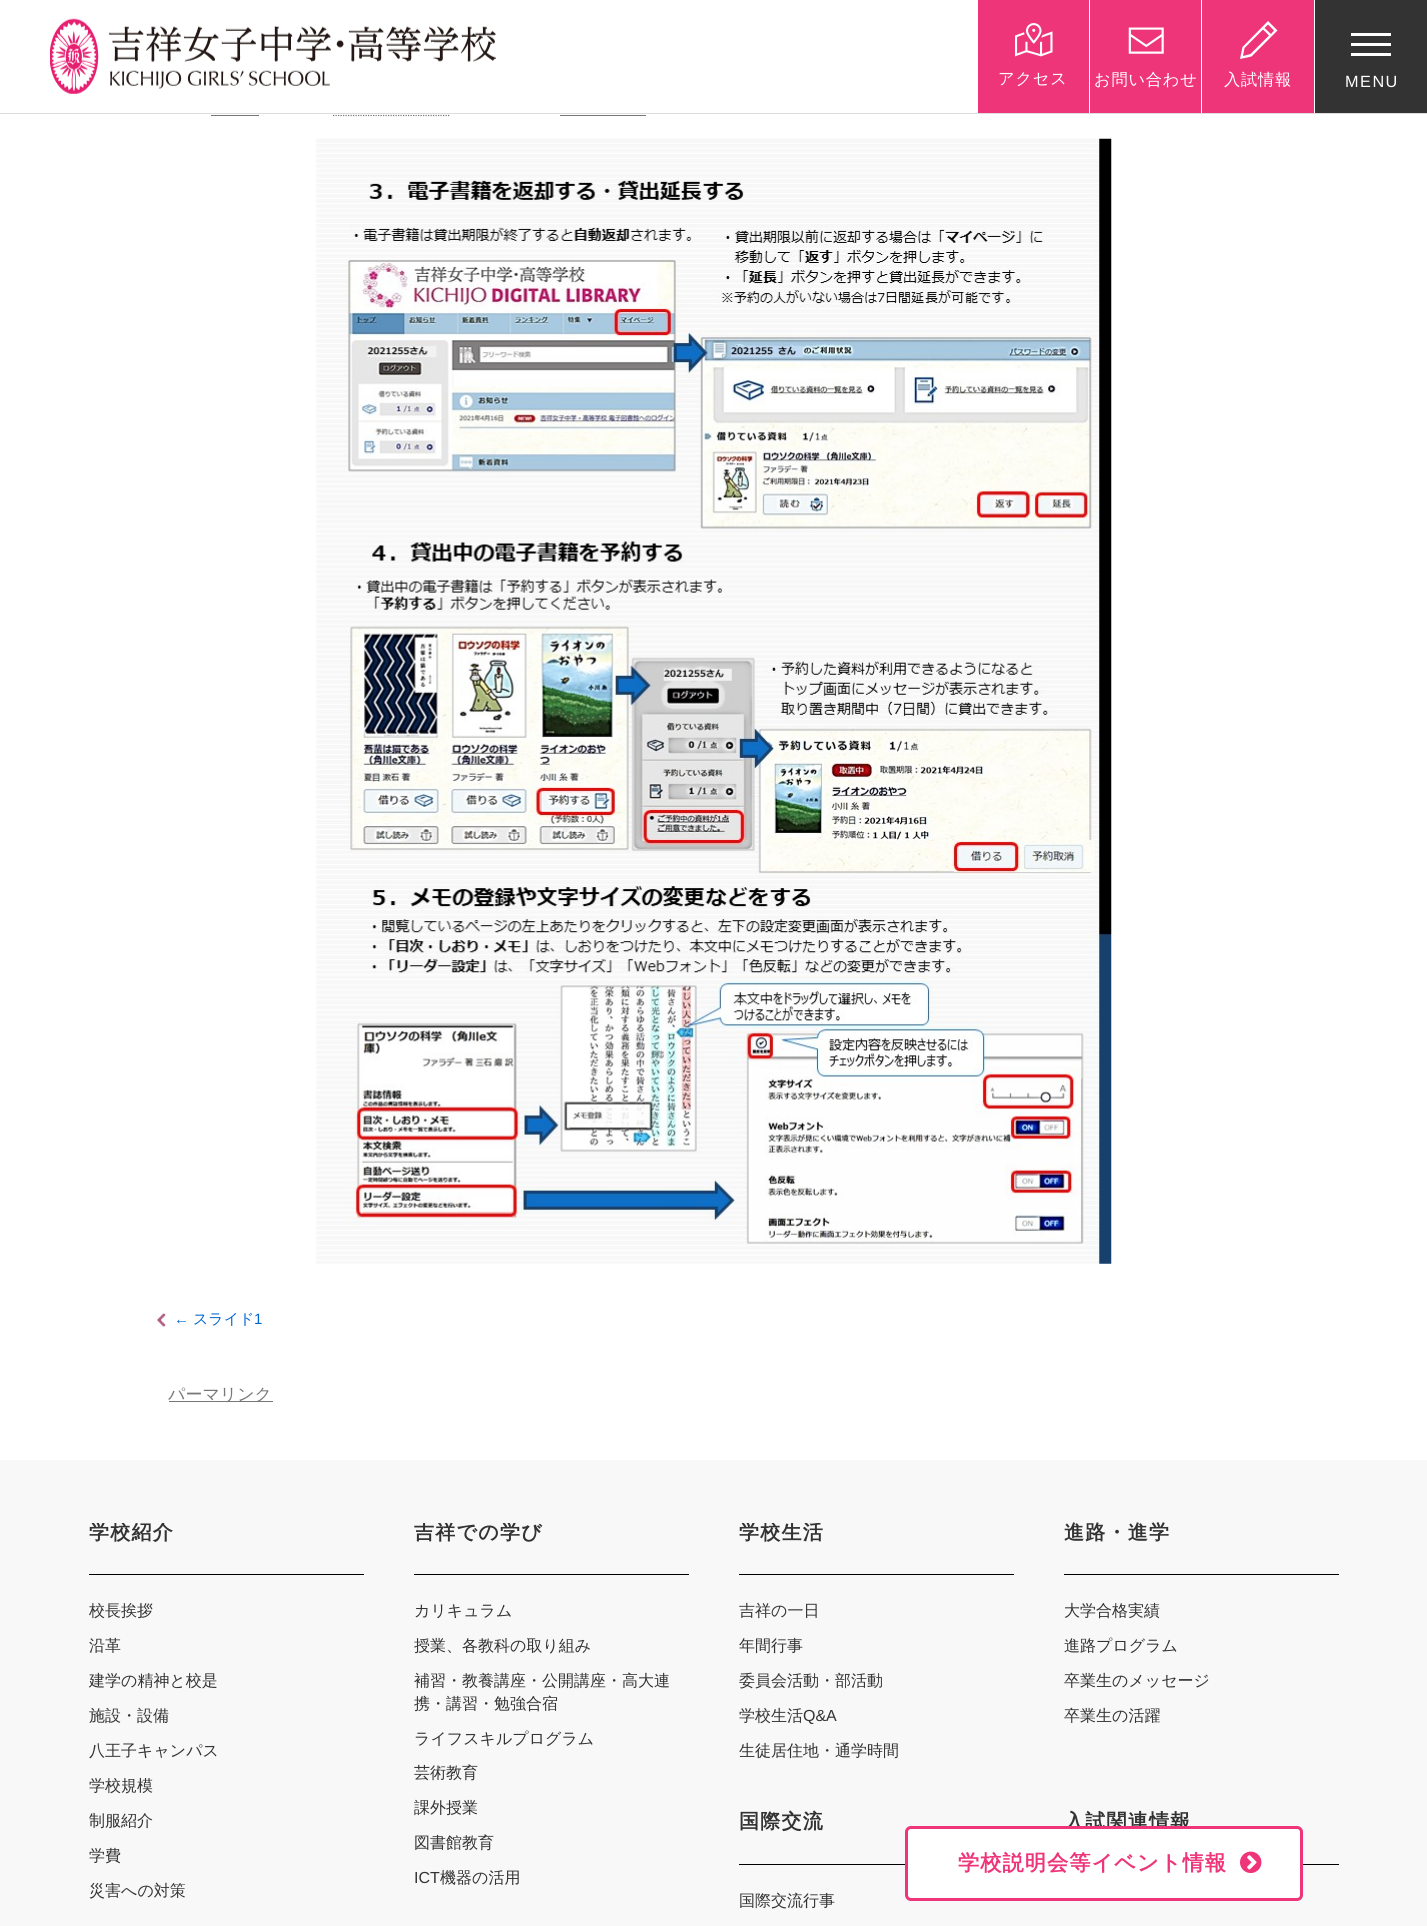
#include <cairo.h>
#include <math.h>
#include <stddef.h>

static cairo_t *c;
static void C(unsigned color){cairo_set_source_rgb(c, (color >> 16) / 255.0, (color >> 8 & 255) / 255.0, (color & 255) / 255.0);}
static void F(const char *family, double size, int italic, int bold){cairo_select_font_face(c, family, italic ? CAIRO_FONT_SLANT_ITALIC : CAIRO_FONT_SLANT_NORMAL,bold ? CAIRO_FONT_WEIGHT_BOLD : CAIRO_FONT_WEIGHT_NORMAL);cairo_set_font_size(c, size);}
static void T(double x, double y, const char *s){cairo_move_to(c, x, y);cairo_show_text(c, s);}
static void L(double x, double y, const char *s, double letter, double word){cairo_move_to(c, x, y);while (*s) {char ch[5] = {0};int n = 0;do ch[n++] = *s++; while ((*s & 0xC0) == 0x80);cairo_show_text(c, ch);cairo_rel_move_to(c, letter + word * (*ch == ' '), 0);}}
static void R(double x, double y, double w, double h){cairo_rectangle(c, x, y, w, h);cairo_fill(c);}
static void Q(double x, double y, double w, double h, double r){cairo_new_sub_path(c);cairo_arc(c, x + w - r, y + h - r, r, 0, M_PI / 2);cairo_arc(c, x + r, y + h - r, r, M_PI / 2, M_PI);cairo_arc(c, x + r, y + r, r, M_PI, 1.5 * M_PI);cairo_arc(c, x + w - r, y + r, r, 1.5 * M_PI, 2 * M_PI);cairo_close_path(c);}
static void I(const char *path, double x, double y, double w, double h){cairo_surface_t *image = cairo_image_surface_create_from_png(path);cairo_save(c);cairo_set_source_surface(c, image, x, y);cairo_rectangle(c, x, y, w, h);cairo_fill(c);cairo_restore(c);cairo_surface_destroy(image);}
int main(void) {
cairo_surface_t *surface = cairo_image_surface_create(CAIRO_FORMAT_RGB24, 1427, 1926);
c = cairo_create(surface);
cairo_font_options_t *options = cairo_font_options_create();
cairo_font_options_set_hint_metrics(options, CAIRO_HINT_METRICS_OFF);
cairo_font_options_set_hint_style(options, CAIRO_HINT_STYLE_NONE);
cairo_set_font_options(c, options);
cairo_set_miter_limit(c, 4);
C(0xffffff);
cairo_paint(c);
C(0xdddddd);
R(0,113,1427,1);
I("1.png",50,18,446,76);
C(0xee3579);
R(978,0,111,113);
I("2.png",1015,23,38,34);
F("WenQuanYi Zen Hei Medium",16.25,0,0);
C(0xffffff);
L(998,84,"アクセス",.75,0);
C(0xee3579);
R(1090,0,224,113);
C(0xffffff);
R(1201,0,1,113);
I("3.png",1128,27,36,27);
L(1094,85,"お問い合わせ",.75,0);
cairo_new_path(c);
cairo_move_to(c,1240,59);
cairo_line_to(c,1242.5,47);
cairo_line_to(c,1268,21);
cairo_line_to(c,1277.5,30.5);
cairo_line_to(c,1251.5,56.5);
cairo_close_path(c);
cairo_move_to(c,1250.5,54);
cairo_line_to(c,1269,35.5);
cairo_line_to(c,1263,29.5);
cairo_line_to(c,1244.5,48);
cairo_line_to(c,1243,56);
cairo_close_path(c);
cairo_move_to(c,1271,34);
cairo_line_to(c,1274,30.5);
cairo_line_to(c,1268,24.5);
cairo_line_to(c,1264.5,28);
cairo_close_path(c);
cairo_fill(c);
L(1224,85,"入試情報",.75,0);
C(0x333333);
R(1315,0,112,113);
C(0xffffff);
R(1351,43,40,3);
R(1351,33,40,3);
R(1351,53,40,3);
F("Liberation Sans",16.25,0,0);
L(1345,87,"MENU",1.5,0);
C(0x777777);
R(211,115,48,1);
cairo_new_path(c);
cairo_move_to(c,333,115.5);
cairo_line_to(c,450.5,115.5);
cairo_set_line_width(c,1.2);
cairo_set_dash(c,(double[]){1.25,1.25},2,0);
cairo_stroke(c);
R(560,115,86,1);
I("4.png",316,138,796,1126);
I("5.png",157,1313,9,14);
F("Liberation Sans",15,0,0);
C(0x0066cc);
T(174,1324,"←");
F("WenQuanYi Zen Hei Medium",15,0,0);
T(193,1324,"スライド");
F("Liberation Sans",15,0,0);
T(254,1324,"1");
C(0x777777);
R(169,1401,104,1);
F("WenQuanYi Zen Hei Medium",17,0,0);
T(168,1400,"パーマリンク");
C(0xf8f8f8);
R(0,1460,1427,466);
C(0x000000);
R(89,1574,275,1);
cairo_save(c);
cairo_rectangle(c,89,1523,1250,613);
cairo_clip(c);
F("WenQuanYi Zen Hei",20,0,1);
C(0x333333);
L(89,1539,"学校紹介",1.25,0);
cairo_restore(c);
F("WenQuanYi Zen Hei Medium",16,0,0);
C(0x333333);
T(89,1616,"校長挨拶");
T(89,1651,"沿革");
T(89,1686,"建学の精神と校是");
T(89,1721,"施設・設備");
T(89,1756,"八王子キャンパス");
T(89,1791,"学校規模");
T(89,1826,"制服紹介");
T(89,1861,"学費");
T(89,1896,"災害への対策");
C(0x000000);
R(414,1574,275,1);
cairo_save(c);
cairo_rectangle(c,89,1523,1250,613);
cairo_clip(c);
F("WenQuanYi Zen Hei",20,0,1);
C(0x333333);
L(414,1539,"吉祥での学び",1.25,0);
cairo_restore(c);
C(0x333333);
T(414,1616,"カリキュラム");
T(414,1651,"授業、各教科の取り組み");
T(414,1686,"補習・教養講座・公開講座・高大連");
T(414,1709,"携・講習・勉強合宿");
T(414,1744,"ライフスキルプログラム");
T(414,1778,"芸術教育");
T(414,1813,"課外授業");
T(414,1848,"図書館教育");
F("Liberation Sans",16,0,0);
T(414,1883,"ICT");
F("WenQuanYi Zen Hei Medium",16,0,0);
T(440,1883,"機器の活用");
C(0x000000);
R(739,1574,275,1);
cairo_save(c);
cairo_rectangle(c,89,1523,1250,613);
cairo_clip(c);
F("WenQuanYi Zen Hei",20,0,1);
C(0x333333);
L(739,1539,"学校生活",1.25,0);
cairo_restore(c);
C(0x333333);
T(739,1616,"吉祥の一日");
T(739,1651,"年間行事");
T(739,1686,"委員会活動・部活動");
T(739,1721,"学校生活");
F("Liberation Sans",16,0,0);
T(803,1721,"Q&A");
F("WenQuanYi Zen Hei Medium",16,0,0);
T(739,1756,"生徒居住地・通学時間");
C(0x000000);
R(1064,1574,275,1);
F("WenQuanYi Zen Hei",20,0,1);
C(0x333333);
L(1064,1539,"進路・進学",1.25,0);
F("WenQuanYi Zen Hei Medium",16,0,0);
T(1064,1616,"大学合格実績");
T(1064,1651,"進路プログラム");
T(1064,1686,"卒業生のメッセージ");
T(1064,1721,"卒業生の活躍");
C(0x000000);
R(739,1864,166,1);
F("WenQuanYi Zen Hei",20,0,1);
C(0x333333);
L(739,1828,"国際交流",1.25,0);
F("WenQuanYi Zen Hei Medium",16,0,0);
T(739,1906,"国際交流行事");
C(0x000000);
R(1303,1864,36,1);
F("WenQuanYi Zen Hei",20,0,1);
C(0x333333);
L(1064,1828,"入試関連情報",1.25,0);
C(0xffffff);
Q(906.5,1827.5,395,72,4.5);
cairo_fill_preserve(c);
C(0xee3579);
cairo_set_line_width(c,3);
cairo_set_dash(c,NULL,0,0);
cairo_stroke(c);
F("WenQuanYi Zen Hei",21.25,0,1);
L(958,1870,"学校説明会等イベント情報",1,0);
I("6.png",1240,1851,22,22);
cairo_surface_write_to_png(surface, "o.png");
cairo_font_options_destroy(options);
cairo_destroy(c);
cairo_surface_destroy(surface);
return 0;
}
